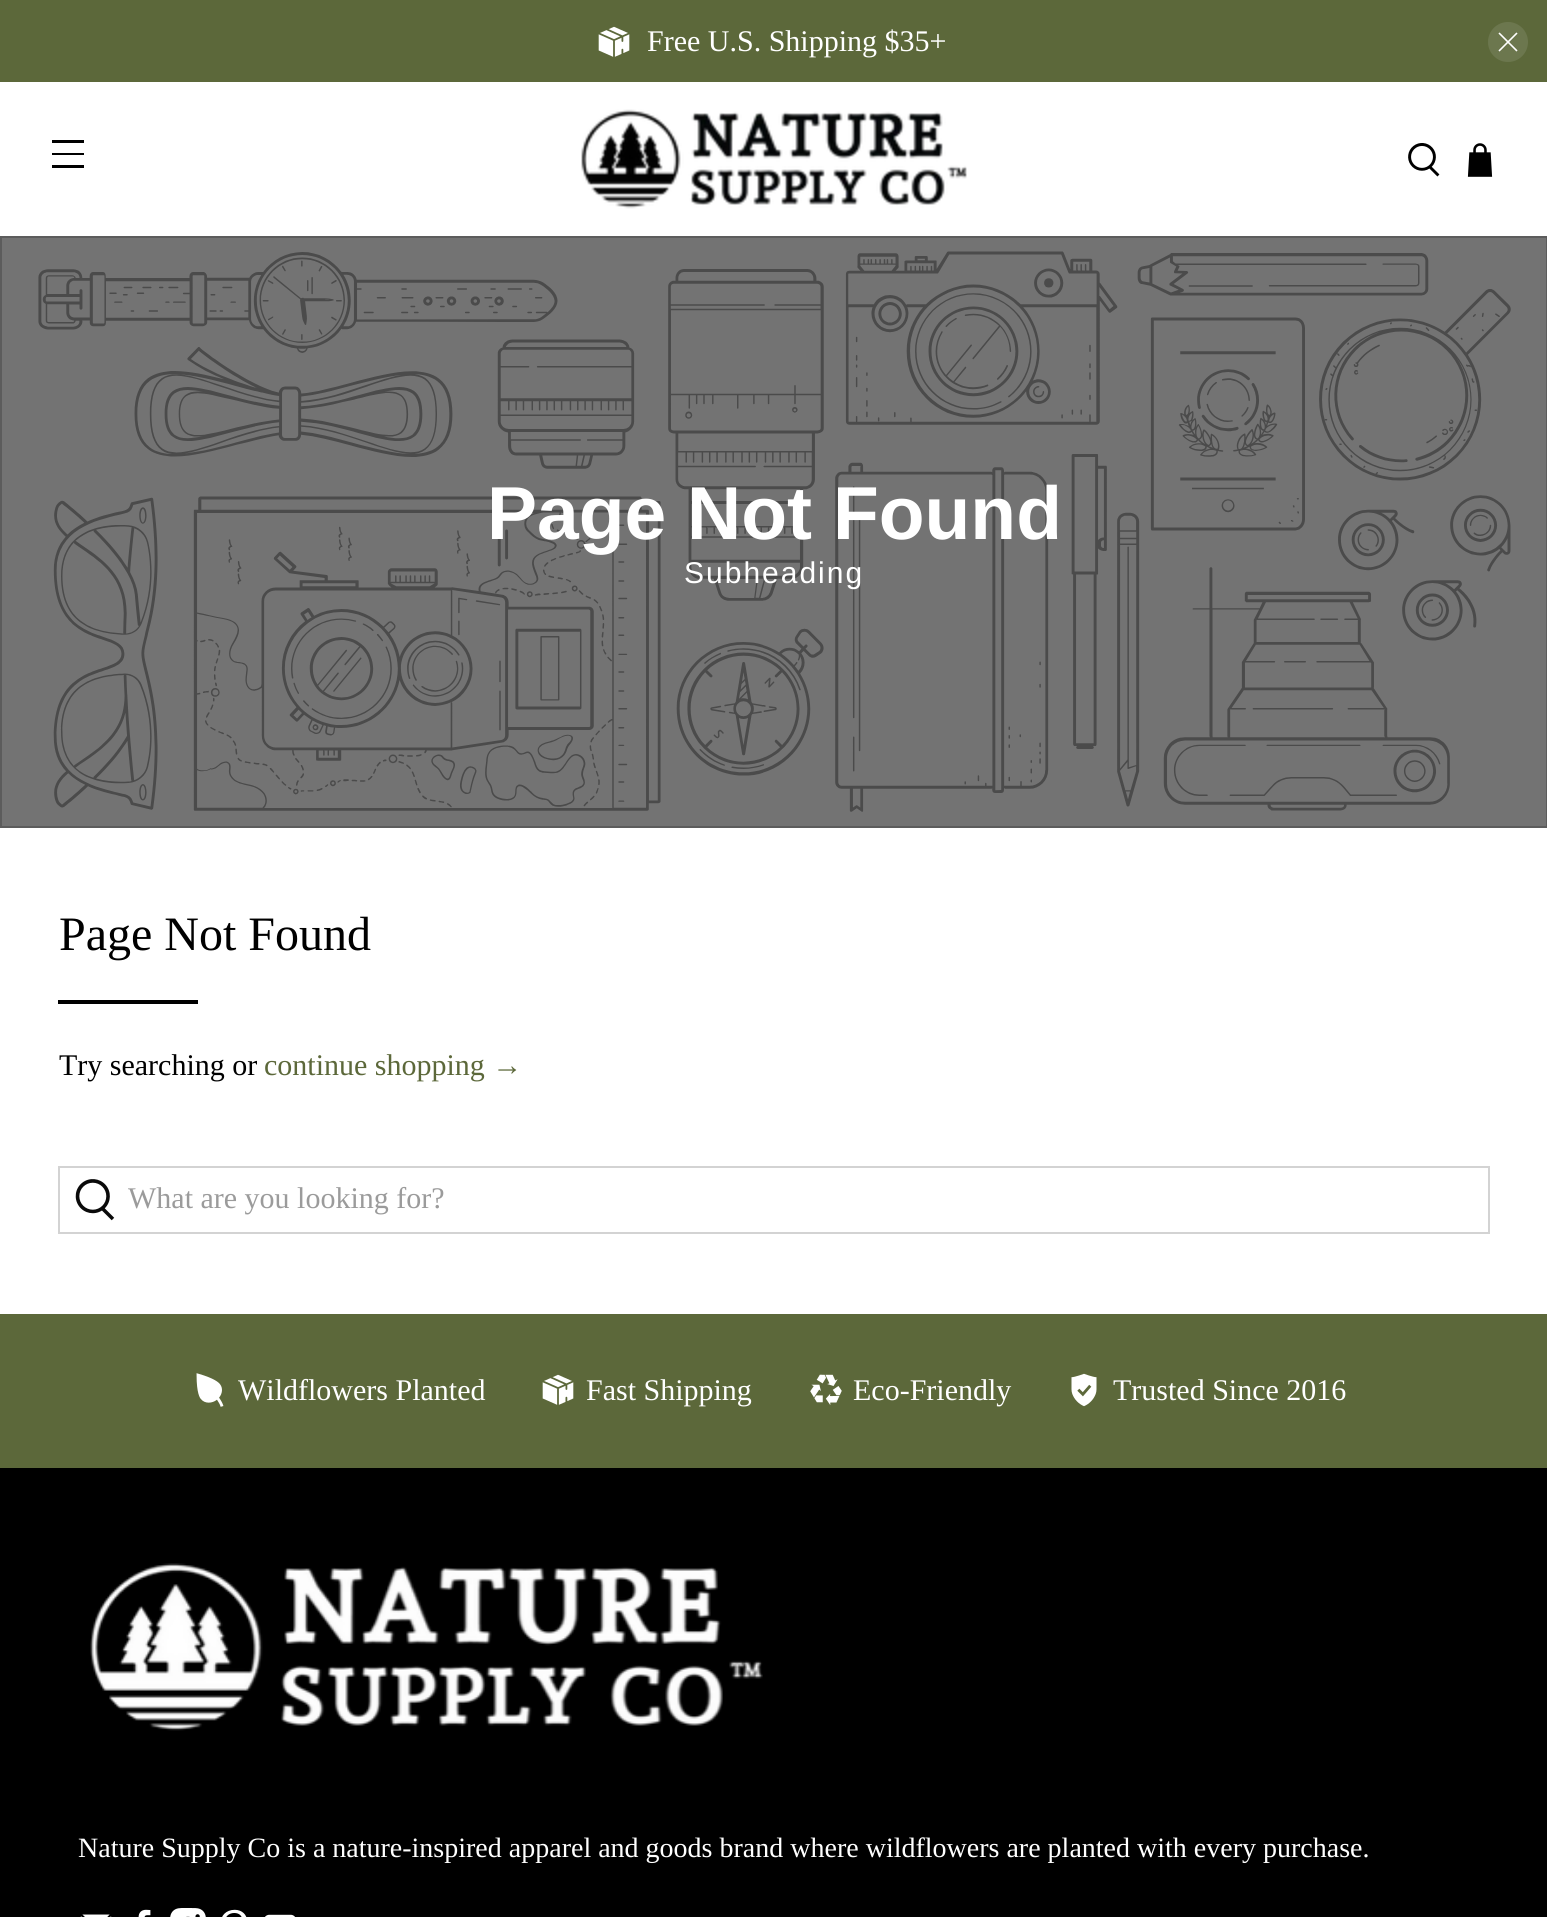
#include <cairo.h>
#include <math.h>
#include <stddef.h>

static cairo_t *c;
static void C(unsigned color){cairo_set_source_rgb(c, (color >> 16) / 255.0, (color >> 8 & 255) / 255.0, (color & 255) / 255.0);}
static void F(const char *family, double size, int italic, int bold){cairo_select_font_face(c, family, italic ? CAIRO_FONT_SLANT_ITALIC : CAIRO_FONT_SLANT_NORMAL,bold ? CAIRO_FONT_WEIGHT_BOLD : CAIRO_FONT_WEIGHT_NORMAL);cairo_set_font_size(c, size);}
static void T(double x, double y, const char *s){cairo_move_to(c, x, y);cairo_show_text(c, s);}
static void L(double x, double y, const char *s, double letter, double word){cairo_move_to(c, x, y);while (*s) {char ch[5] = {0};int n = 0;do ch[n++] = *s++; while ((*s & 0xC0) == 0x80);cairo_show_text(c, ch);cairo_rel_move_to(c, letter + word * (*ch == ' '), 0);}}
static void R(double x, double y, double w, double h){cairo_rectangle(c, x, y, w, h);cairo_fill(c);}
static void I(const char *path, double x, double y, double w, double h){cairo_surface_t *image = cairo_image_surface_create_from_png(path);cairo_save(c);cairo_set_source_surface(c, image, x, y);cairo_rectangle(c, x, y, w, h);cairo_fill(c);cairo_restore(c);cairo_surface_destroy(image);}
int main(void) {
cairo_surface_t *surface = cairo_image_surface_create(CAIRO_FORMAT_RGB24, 1547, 1917);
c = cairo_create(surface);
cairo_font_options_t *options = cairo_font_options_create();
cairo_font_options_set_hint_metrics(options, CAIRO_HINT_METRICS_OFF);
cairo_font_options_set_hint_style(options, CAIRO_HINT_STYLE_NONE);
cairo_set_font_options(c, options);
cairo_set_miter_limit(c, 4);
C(0xffffff);
cairo_paint(c);
C(0x5c683a);
R(0,0,1547,82);
I("1.png",598,26,32,31);
F("Liberation Serif",30,0,0);
C(0xffffff);
T(647,51,"Free U.S. Shipping $35+");
C(0x6c774e);
cairo_new_path(c);
cairo_arc(c,1508,42,20,0,2 * M_PI);
cairo_fill(c);
I("2.png",1498,32,20,20);
C(0x000000);
R(52,140,32,3);
R(52,153,32,2);
R(52,165,32,3);
I("3.png",581,109,386,100);
I("4.png",1408,143,32,34);
I("5.png",1467,143,26,34);
C(0x737373);
cairo_rectangle(c,1,237,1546,590);
cairo_fill_preserve(c);
C(0x5c5c5c);
cairo_stroke(c);
I("6.png",38,251,1473,561);
F("Liberation Sans",75,0,1);
C(0xffffff);
T(487,539,"Page Not Found");
F("Liberation Sans",30,0,0);
L(684,583,"Subheading",2,0);
F("Liberation Serif",48,0,0);
C(0x000000);
T(59,950,"Page Not Found");
R(58,1000,140,4);
F("Liberation Serif",30,0,0);
T(59,1075,"Try searching or");
C(0x5c683a);
T(264,1075,"continue shopping →");
cairo_rectangle(c,59,1167,1430,66);
C(0xd3d3d3);
cairo_stroke(c);
I("7.png",75,1179,40,42);
C(0x9b9b9b);
T(128,1208,"What are you looking for?");
C(0x5c683a);
R(0,1314,1547,154);
I("8.png",196,1373,28,34);
C(0xffffff);
T(238,1400,"Wildflowers Planted");
I("1.png",542,1374,32,31);
T(586,1400,"Fast Shipping");
I("9.png",810,1374,32,31);
T(853,1400,"Eco-Friendly");
I("10.png",1071,1373,26,34);
T(1113,1400,"Trusted Since 2016");
C(0x000000);
R(0,1468,1547,449);
I("11.png",90,1563,673,168);
F("Liberation Serif",28,0,0);
C(0xffffff);
T(78,1857,"Nature Supply Co is a nature-inspired apparel and goods brand where wildflowers are planted with every purchase.");
I("12.png",80,1914,32,3);
I("13.png",138,1909,13,8);
I("14.png",170,1908,36,9);
I("15.png",222,1909,25,8);
I("16.png",265,1914,30,3);
cairo_surface_write_to_png(surface, "o.png");
cairo_font_options_destroy(options);
cairo_destroy(c);
cairo_surface_destroy(surface);
return 0;
}
